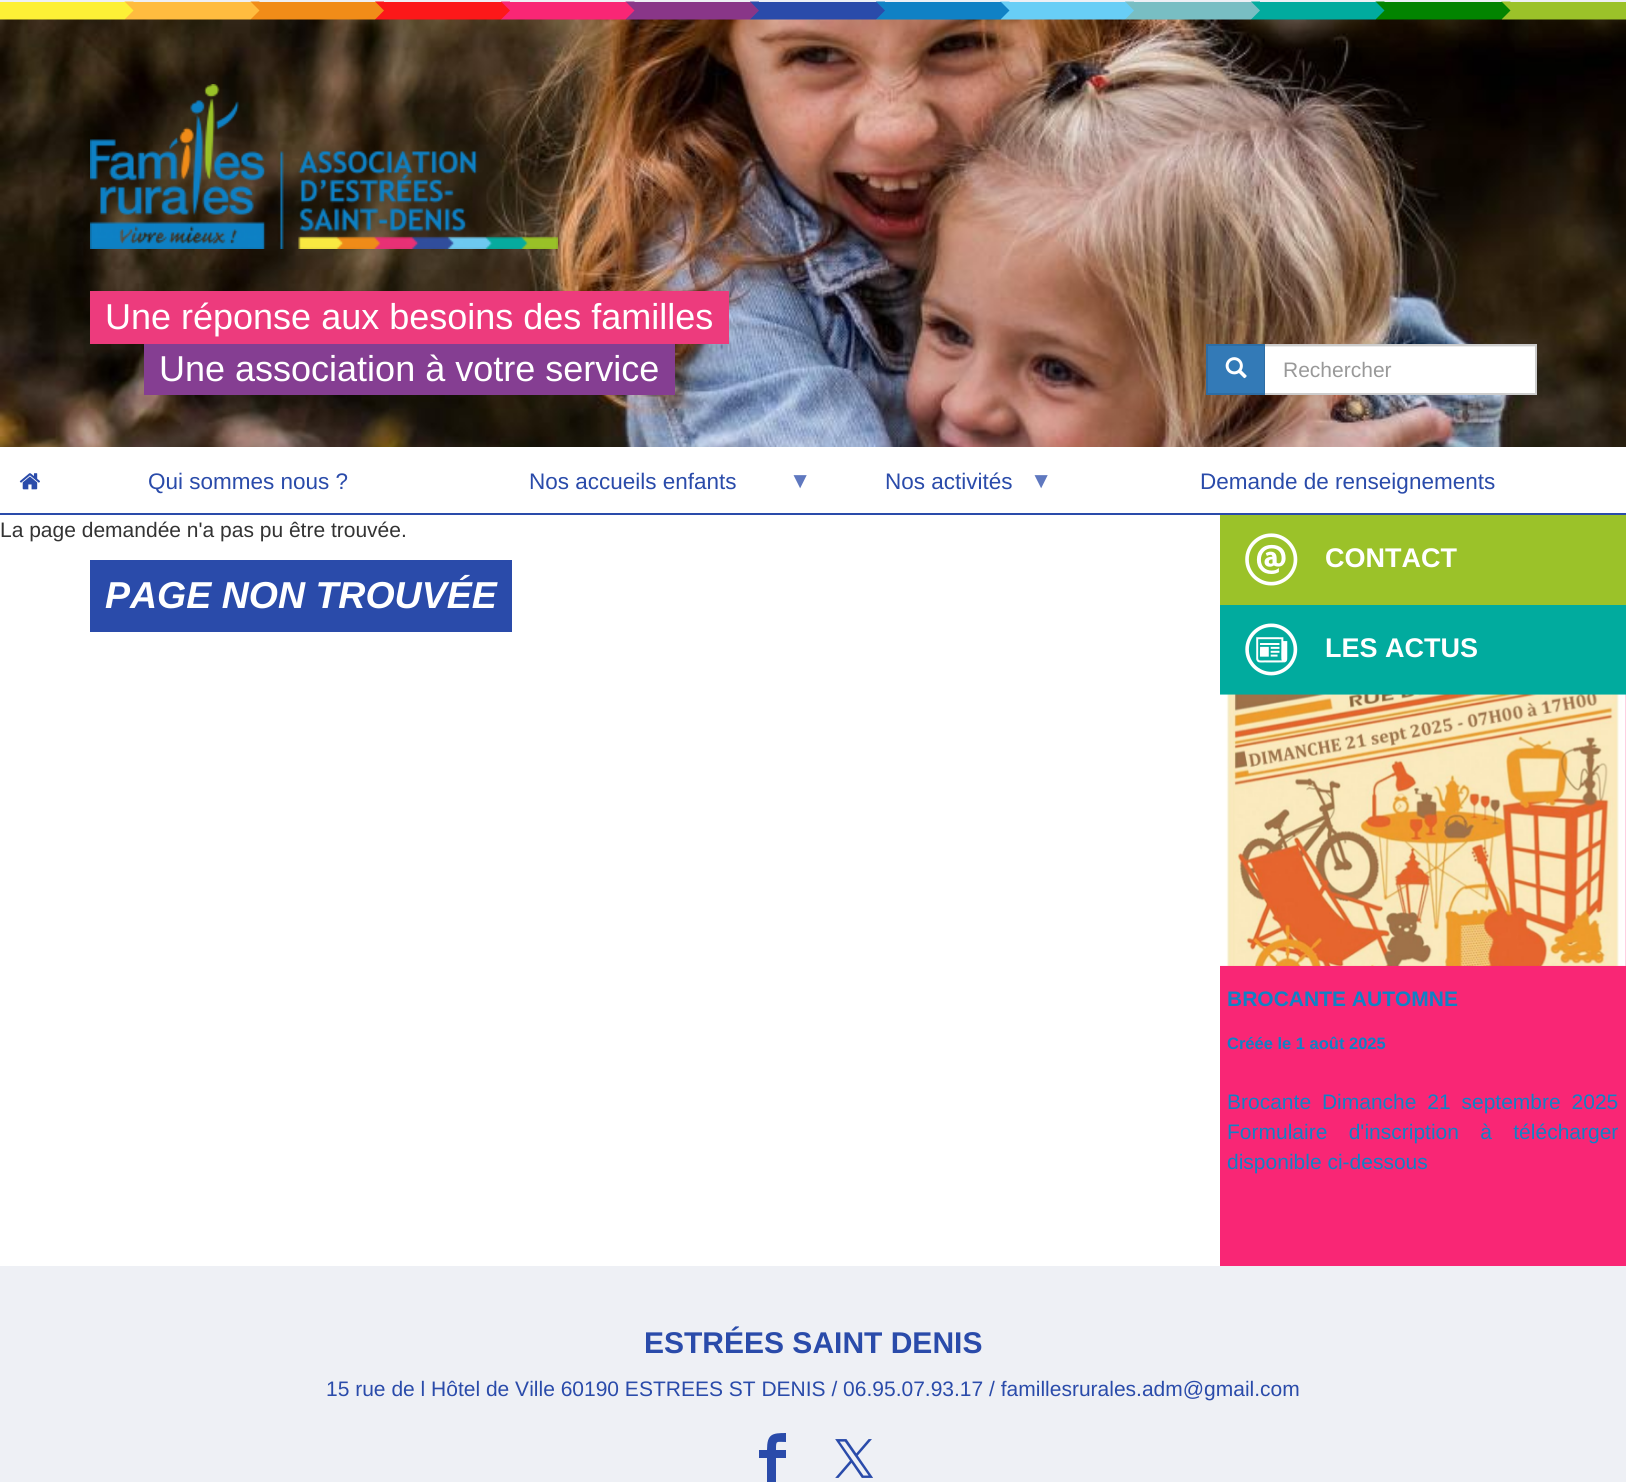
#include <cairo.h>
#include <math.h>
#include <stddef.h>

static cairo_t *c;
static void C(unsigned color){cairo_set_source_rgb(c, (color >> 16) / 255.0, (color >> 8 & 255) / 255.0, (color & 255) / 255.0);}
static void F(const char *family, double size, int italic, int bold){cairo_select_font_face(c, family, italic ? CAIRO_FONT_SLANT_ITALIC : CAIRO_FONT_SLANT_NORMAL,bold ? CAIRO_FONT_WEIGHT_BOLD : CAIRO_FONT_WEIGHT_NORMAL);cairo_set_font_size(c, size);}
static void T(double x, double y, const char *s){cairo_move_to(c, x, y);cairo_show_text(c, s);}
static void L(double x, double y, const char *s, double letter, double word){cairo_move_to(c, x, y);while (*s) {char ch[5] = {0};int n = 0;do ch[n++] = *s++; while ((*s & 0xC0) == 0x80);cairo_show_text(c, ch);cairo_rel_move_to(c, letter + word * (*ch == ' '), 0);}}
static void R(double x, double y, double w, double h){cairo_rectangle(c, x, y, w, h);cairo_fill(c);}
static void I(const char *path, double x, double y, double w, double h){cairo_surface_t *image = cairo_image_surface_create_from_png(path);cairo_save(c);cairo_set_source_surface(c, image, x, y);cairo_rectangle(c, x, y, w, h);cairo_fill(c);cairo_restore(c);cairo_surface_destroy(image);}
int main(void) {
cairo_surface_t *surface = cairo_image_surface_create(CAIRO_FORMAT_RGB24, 1626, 1482);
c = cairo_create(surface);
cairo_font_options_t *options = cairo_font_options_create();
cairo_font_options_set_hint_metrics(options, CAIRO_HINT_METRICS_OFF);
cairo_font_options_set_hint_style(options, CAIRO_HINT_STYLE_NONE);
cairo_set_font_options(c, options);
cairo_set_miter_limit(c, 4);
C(0xeef0f5);
cairo_paint(c);
C(0xfdf036);
R(0,2,125,18);
C(0xffbc3f);
R(125,2,126,18);
cairo_new_path(c);
cairo_move_to(c,124.5,1.5);
cairo_line_to(c,133.5,1.5);
cairo_line_to(c,133.5,10.5);
cairo_close_path(c);
cairo_fill(c);
cairo_new_path(c);
cairo_move_to(c,133.5,19.5);
cairo_line_to(c,124.5,19.5);
cairo_line_to(c,133.5,10.5);
cairo_close_path(c);
cairo_fill(c);
C(0xfdf036);
cairo_new_path(c);
cairo_move_to(c,124.5,19.5);
cairo_line_to(c,124.5,1.5);
cairo_line_to(c,133.5,10.5);
cairo_close_path(c);
cairo_fill(c);
C(0xf18c18);
R(251,2,124,18);
cairo_new_path(c);
cairo_move_to(c,250.5,1.5);
cairo_line_to(c,259.5,1.5);
cairo_line_to(c,259.5,10.5);
cairo_close_path(c);
cairo_fill(c);
cairo_new_path(c);
cairo_move_to(c,259.5,19.5);
cairo_line_to(c,250.5,19.5);
cairo_line_to(c,259.5,10.5);
cairo_close_path(c);
cairo_fill(c);
C(0xffbc3f);
cairo_new_path(c);
cairo_move_to(c,250.5,19.5);
cairo_line_to(c,250.5,1.5);
cairo_line_to(c,259.5,10.5);
cairo_close_path(c);
cairo_fill(c);
C(0xfc1819);
R(375,2,126,18);
cairo_new_path(c);
cairo_move_to(c,375,1.5);
cairo_line_to(c,384,1.5);
cairo_line_to(c,384,10.5);
cairo_close_path(c);
cairo_fill(c);
C(0xf18c18);
cairo_new_path(c);
cairo_move_to(c,375,19.5);
cairo_line_to(c,375,1.5);
cairo_line_to(c,384,10.5);
cairo_close_path(c);
cairo_fill(c);
C(0xf92675);
R(501,2,125,18);
cairo_new_path(c);
cairo_move_to(c,501,1.5);
cairo_line_to(c,510,1.5);
cairo_line_to(c,510,10.5);
cairo_close_path(c);
cairo_fill(c);
C(0xfc1819);
cairo_new_path(c);
cairo_move_to(c,501,19.5);
cairo_line_to(c,501,1.5);
cairo_line_to(c,510,10.5);
cairo_close_path(c);
cairo_fill(c);
C(0x893688);
R(626,2,124,18);
cairo_new_path(c);
cairo_move_to(c,625.5,1.5);
cairo_line_to(c,634.5,1.5);
cairo_line_to(c,634.5,10.5);
cairo_close_path(c);
cairo_fill(c);
cairo_new_path(c);
cairo_move_to(c,634.5,19.5);
cairo_line_to(c,625.5,19.5);
cairo_line_to(c,634.5,10.5);
cairo_close_path(c);
cairo_fill(c);
C(0xf92675);
cairo_new_path(c);
cairo_move_to(c,625.5,19.5);
cairo_line_to(c,625.5,1.5);
cairo_line_to(c,634.5,10.5);
cairo_close_path(c);
cairo_fill(c);
C(0x2a4baa);
R(750,2,126,18);
cairo_new_path(c);
cairo_move_to(c,750,1.5);
cairo_line_to(c,759,1.5);
cairo_line_to(c,759,10.5);
cairo_close_path(c);
cairo_fill(c);
C(0x893688);
cairo_new_path(c);
cairo_move_to(c,750,19.5);
cairo_line_to(c,750,1.5);
cairo_line_to(c,759,10.5);
cairo_close_path(c);
cairo_fill(c);
C(0x1081c5);
R(876,2,125,18);
cairo_new_path(c);
cairo_move_to(c,876,1.5);
cairo_line_to(c,885,1.5);
cairo_line_to(c,885,10.5);
cairo_close_path(c);
cairo_fill(c);
C(0x2a4baa);
cairo_new_path(c);
cairo_move_to(c,876,19.5);
cairo_line_to(c,876,1.5);
cairo_line_to(c,885,10.5);
cairo_close_path(c);
cairo_fill(c);
C(0x68cef6);
R(1001,2,124,18);
cairo_new_path(c);
cairo_move_to(c,1000.5,1.5);
cairo_line_to(c,1009.5,1.5);
cairo_line_to(c,1009.5,10.5);
cairo_close_path(c);
cairo_fill(c);
cairo_new_path(c);
cairo_move_to(c,1009.5,19.5);
cairo_line_to(c,1000.5,19.5);
cairo_line_to(c,1009.5,10.5);
cairo_close_path(c);
cairo_fill(c);
C(0x1081c5);
cairo_new_path(c);
cairo_move_to(c,1000.5,19.5);
cairo_line_to(c,1000.5,1.5);
cairo_line_to(c,1009.5,10.5);
cairo_close_path(c);
cairo_fill(c);
C(0x78bec3);
R(1125,2,126,18);
cairo_new_path(c);
cairo_move_to(c,1125,1.5);
cairo_line_to(c,1134,1.5);
cairo_line_to(c,1134,10.5);
cairo_close_path(c);
cairo_fill(c);
C(0x68cef6);
cairo_new_path(c);
cairo_move_to(c,1125,19.5);
cairo_line_to(c,1125,1.5);
cairo_line_to(c,1134,10.5);
cairo_close_path(c);
cairo_fill(c);
C(0x01ab9e);
R(1251,2,125,18);
cairo_new_path(c);
cairo_move_to(c,1251,1.5);
cairo_line_to(c,1260,1.5);
cairo_line_to(c,1260,10.5);
cairo_close_path(c);
cairo_fill(c);
C(0x78bec3);
cairo_new_path(c);
cairo_move_to(c,1251,19.5);
cairo_line_to(c,1251,1.5);
cairo_line_to(c,1260,10.5);
cairo_close_path(c);
cairo_fill(c);
C(0x028400);
R(1376,2,126,18);
cairo_new_path(c);
cairo_move_to(c,1375.5,1.5);
cairo_line_to(c,1384.5,1.5);
cairo_line_to(c,1384.5,10.5);
cairo_close_path(c);
cairo_fill(c);
cairo_new_path(c);
cairo_move_to(c,1384.5,19.5);
cairo_line_to(c,1375.5,19.5);
cairo_line_to(c,1384.5,10.5);
cairo_close_path(c);
cairo_fill(c);
C(0x01ab9e);
cairo_new_path(c);
cairo_move_to(c,1375.5,19.5);
cairo_line_to(c,1375.5,1.5);
cairo_line_to(c,1384.5,10.5);
cairo_close_path(c);
cairo_fill(c);
C(0x9bc229);
R(1502,2,124,18);
cairo_new_path(c);
cairo_move_to(c,1501.5,1.5);
cairo_line_to(c,1510.5,1.5);
cairo_line_to(c,1510.5,10.5);
cairo_close_path(c);
cairo_fill(c);
cairo_new_path(c);
cairo_move_to(c,1510.5,19.5);
cairo_line_to(c,1501.5,19.5);
cairo_line_to(c,1510.5,10.5);
cairo_close_path(c);
cairo_fill(c);
C(0x028400);
cairo_new_path(c);
cairo_move_to(c,1501.5,19.5);
cairo_line_to(c,1501.5,1.5);
cairo_line_to(c,1510.5,10.5);
cairo_close_path(c);
cairo_fill(c);
I("1.png",0,19,1626,428);
I("2.png",90,84,468,165);
C(0xed3b7d);
R(90,291,639,53);
F("Liberation Sans",36,0,0);
C(0xffffff);
T(105,329,"Une réponse aux besoins des familles");
C(0x853e92);
R(144,344,531,51);
C(0xffffff);
T(159,381,"Une association à votre service");
C(0x337ab7);
cairo_rectangle(c,1207,345,58,49);
cairo_fill_preserve(c);
C(0x2e6da4);
cairo_stroke(c);
I("3.png",1225,357,22,22);
C(0xffffff);
R(1265,347,270,46);
C(0xececec);
R(1265,346,270,1);
C(0xcccccc);
R(1265,344,271,2);
R(1535,344,2,51);
R(1265,393,271,2);
F("Liberation Sans",21,0,0);
C(0x999999);
T(1283,377,"Rechercher");
C(0x2a4baa);
R(0,513,1626,2);
C(0xffffff);
R(0,447,1626,66);
I("4.png",19,473,21,17);
F("Liberation Sans",22.5,0,0);
C(0x2a4baa);
T(148,489,"Qui sommes nous ?");
T(529,489,"Nos accueils enfants");
C(0x5f78bf);
T(789,488,"▼");
C(0x2a4baa);
T(885,489,"Nos activités");
C(0x5f78bf);
T(1030,488,"▼");
C(0x2a4baa);
T(1200,489,"Demande de renseignements");
C(0xffffff);
R(0,515,1220,751);
F("Liberation Sans",21,0,0);
C(0x333333);
T(0,537,"La page demandée n'a pas pu être trouvée.");
C(0x2a4baa);
R(90,560,422,72);
F("Liberation Sans",37.5,1,1);
C(0xffffff);
T(105,608,"PAGE NON TROUVÉE");
C(0x9bc229);
R(1220,515,406,90);
I("5.png",1245,533,53,53);
F("Liberation Sans",27,0,1);
C(0xffffff);
T(1325,567,"CONTACT");
C(0x01ab9e);
R(1220,605,406,90);
I("6.png",1245,623,53,53);
C(0xffffff);
T(1325,657,"LES ACTUS");
C(0xf92675);
R(1220,695,406,571);
I("7.png",1220,694,406,272);
F("Liberation Sans",21,0,1);
C(0x1081c5);
T(1227,1006,"BROCANTE AUTOMNE");
F("Liberation Sans",16.5,0,1);
T(1227,1049,"Créée le 1 août 2025");
F("Liberation Sans",21,0,0);
L(1227,1109,"Brocante Dimanche 21 septembre 2025",0,5);
L(1227,1139,"Formulaire d'inscription à télécharger",0,15.5);
T(1227,1169,"disponible ci-dessous");
F("Liberation Sans",30,0,1);
C(0x2a4baa);
T(644,1353,"ESTRÉES SAINT DENIS");
F("Liberation Sans",21,0,0);
T(326,1396,"15 rue de l Hôtel de Ville 60190 ESTREES ST DENIS / 06.95.07.93.17 / famillesrurales.adm@gmail.com");
cairo_new_path(c);
cairo_move_to(c,786,1442);
cairo_curve_to(c,776,1442,776,1440,776,1450);
cairo_line_to(c,786,1450);
cairo_line_to(c,786,1458);
cairo_line_to(c,776,1458);
cairo_line_to(c,776,1482);
cairo_line_to(c,767,1482);
cairo_line_to(c,767,1458);
cairo_line_to(c,759,1458);
cairo_line_to(c,759,1450);
cairo_line_to(c,767,1450);
cairo_curve_to(c,767,1434,772,1433,786,1433);
cairo_close_path(c);
cairo_fill(c);
I("8.png",835,1439,38,39);
cairo_surface_write_to_png(surface, "o.png");
cairo_font_options_destroy(options);
cairo_destroy(c);
cairo_surface_destroy(surface);
return 0;
}
